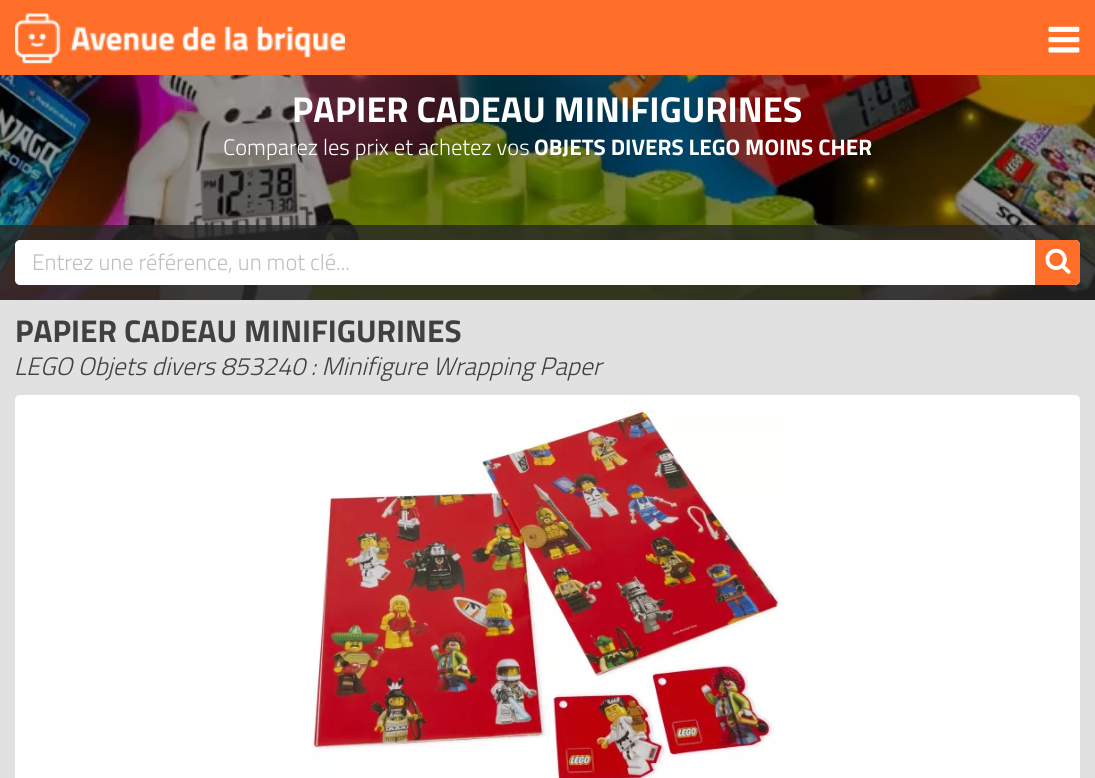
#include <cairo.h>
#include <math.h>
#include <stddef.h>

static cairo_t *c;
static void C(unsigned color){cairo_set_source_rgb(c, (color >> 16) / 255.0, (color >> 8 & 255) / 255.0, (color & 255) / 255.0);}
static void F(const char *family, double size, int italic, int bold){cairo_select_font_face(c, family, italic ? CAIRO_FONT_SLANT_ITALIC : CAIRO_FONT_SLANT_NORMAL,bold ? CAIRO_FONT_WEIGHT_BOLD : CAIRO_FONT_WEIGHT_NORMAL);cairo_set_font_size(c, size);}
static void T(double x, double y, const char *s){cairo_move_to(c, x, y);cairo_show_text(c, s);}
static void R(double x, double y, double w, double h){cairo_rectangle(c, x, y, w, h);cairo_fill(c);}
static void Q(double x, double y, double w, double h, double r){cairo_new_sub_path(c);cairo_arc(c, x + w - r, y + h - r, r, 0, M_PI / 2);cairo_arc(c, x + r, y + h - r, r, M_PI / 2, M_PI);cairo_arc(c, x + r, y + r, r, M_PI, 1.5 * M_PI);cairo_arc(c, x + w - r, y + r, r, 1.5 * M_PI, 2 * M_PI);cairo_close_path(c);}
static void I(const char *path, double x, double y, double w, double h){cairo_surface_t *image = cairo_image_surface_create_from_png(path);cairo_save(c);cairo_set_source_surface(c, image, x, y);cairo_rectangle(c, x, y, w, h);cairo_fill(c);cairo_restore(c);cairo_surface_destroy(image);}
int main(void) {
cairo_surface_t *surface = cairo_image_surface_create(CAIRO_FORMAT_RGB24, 1095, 778);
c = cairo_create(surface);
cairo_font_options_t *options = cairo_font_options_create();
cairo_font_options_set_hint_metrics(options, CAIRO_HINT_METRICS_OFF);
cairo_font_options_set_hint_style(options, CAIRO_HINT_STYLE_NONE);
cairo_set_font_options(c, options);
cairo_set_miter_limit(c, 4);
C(0xe1e1e1);
cairo_paint(c);
C(0xff6f2a);
R(0,0,1095,75);
I("1.png",15,13,330,51);
I("2.png",1048,26,32,27);
I("3.png",0,75,1095,225);
F("Titillium Web",36,0,1);
C(0xffffff);
T(292,122,"PAPIER CADEAU MINIFIGURINES");
F("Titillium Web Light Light",22.5,0,0);
T(223,155,"Comparez les prix et achetez vos");
F("Titillium Web",22.5,0,1);
T(534,155,"OBJETS DIVERS LEGO MOINS CHER");
cairo_set_source_rgba(c,0.149,0.149,0.149,0.8);
R(0,225,1095,75);
C(0xffffff);
Q(16,241,1063,43,4);
cairo_fill_preserve(c);
cairo_stroke(c);
F("Titillium Web Light Light",22.5,0,0);
C(0xbfbfbf);
T(32,270,"Entrez une référence, un mot clé...");
C(0xff6f2a);
cairo_new_path(c);
cairo_move_to(c,1036,241);
cairo_line_to(c,1075,241);
cairo_curve_to(c,1077,241,1079,243,1079,245);
cairo_line_to(c,1079,280);
cairo_curve_to(c,1079,282,1077,284,1075,284);
cairo_line_to(c,1036,284);
cairo_close_path(c);
cairo_fill_preserve(c);
cairo_stroke(c);
I("4.png",1045,248,26,26);
F("Titillium Web",31.5,0,1);
C(0x404040);
T(15,342,"PAPIER CADEAU MINIFIGURINES");
F("Titillium Web Light Light",25.2,1,0);
T(14,375,"LEGO Objets divers 853240 : Minifigure Wrapping Paper");
C(0xffffff);
Q(15,395,1065,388,5);
cairo_fill(c);
I("5.png",312,409,469,369);
cairo_surface_write_to_png(surface, "o.png");
cairo_font_options_destroy(options);
cairo_destroy(c);
cairo_surface_destroy(surface);
return 0;
}
